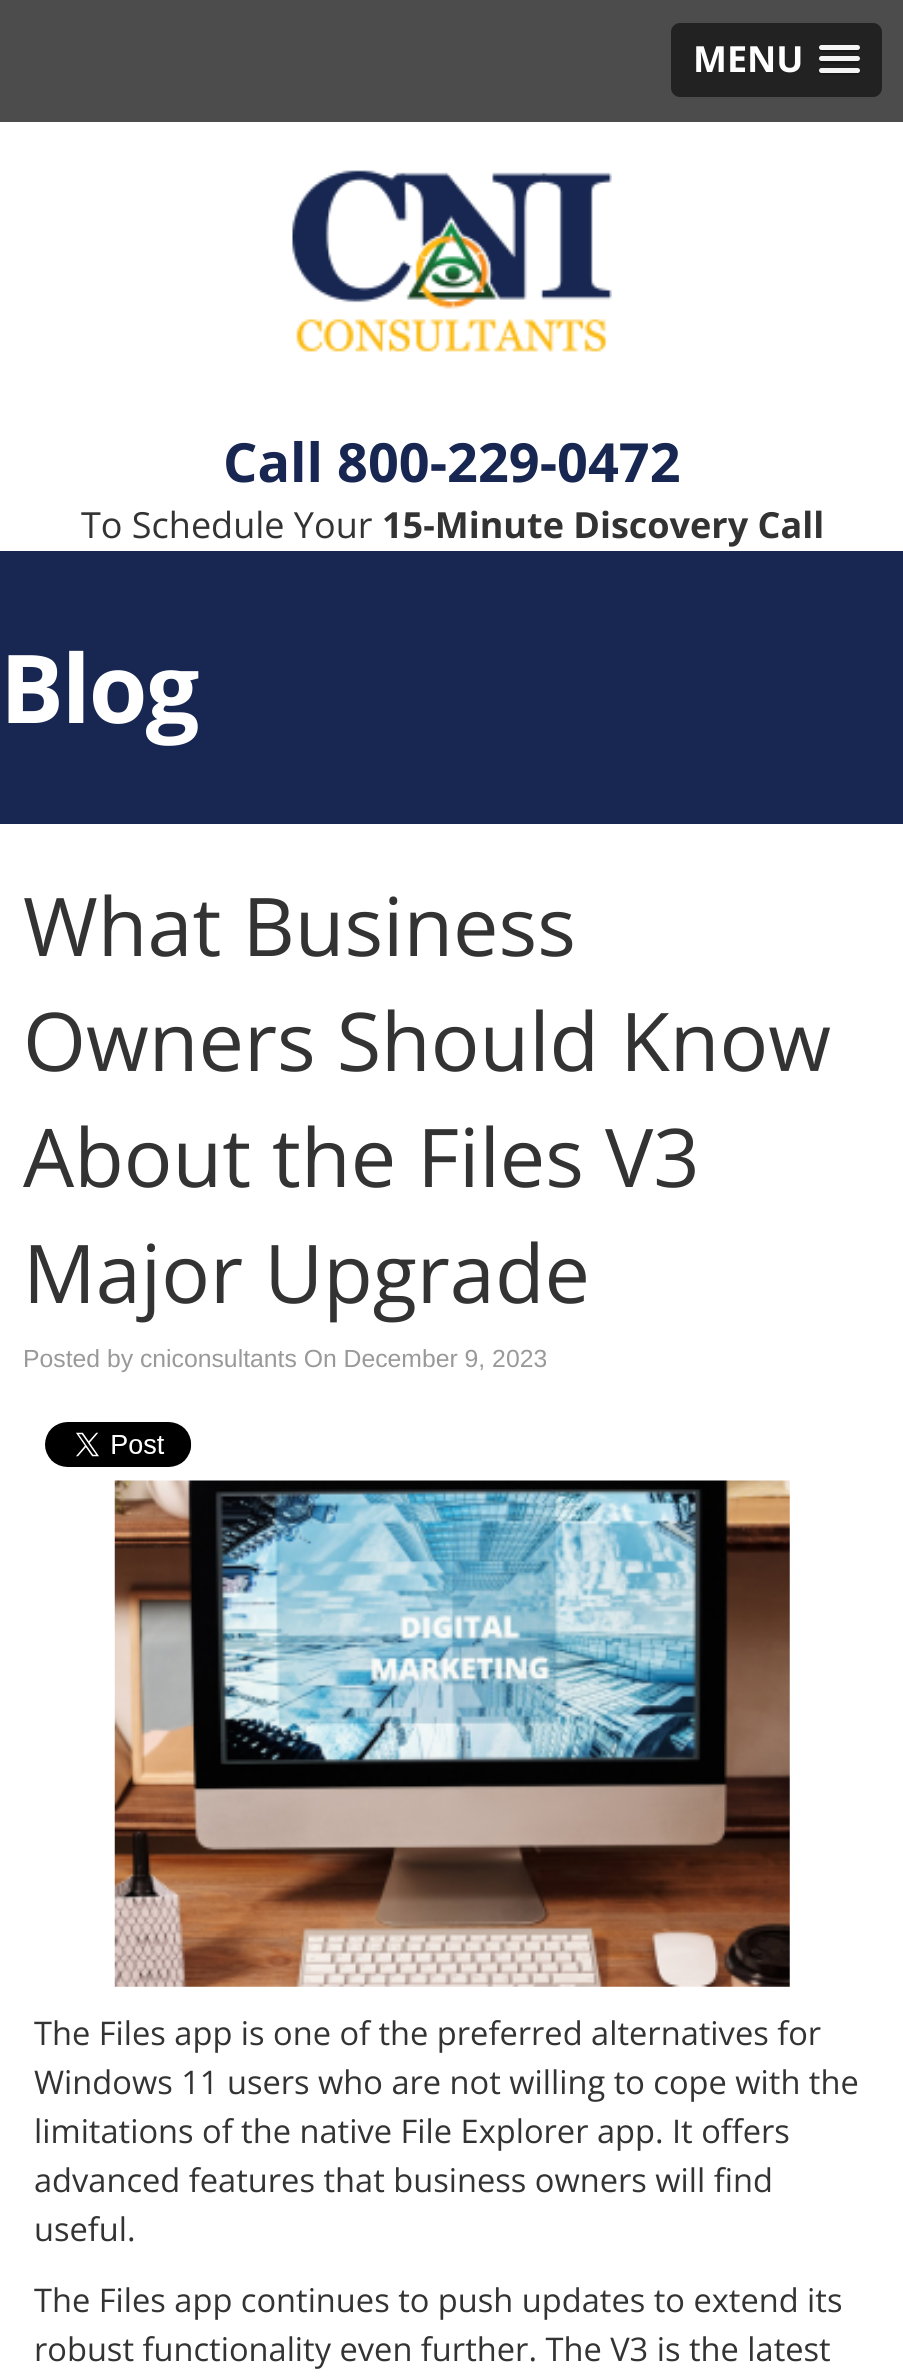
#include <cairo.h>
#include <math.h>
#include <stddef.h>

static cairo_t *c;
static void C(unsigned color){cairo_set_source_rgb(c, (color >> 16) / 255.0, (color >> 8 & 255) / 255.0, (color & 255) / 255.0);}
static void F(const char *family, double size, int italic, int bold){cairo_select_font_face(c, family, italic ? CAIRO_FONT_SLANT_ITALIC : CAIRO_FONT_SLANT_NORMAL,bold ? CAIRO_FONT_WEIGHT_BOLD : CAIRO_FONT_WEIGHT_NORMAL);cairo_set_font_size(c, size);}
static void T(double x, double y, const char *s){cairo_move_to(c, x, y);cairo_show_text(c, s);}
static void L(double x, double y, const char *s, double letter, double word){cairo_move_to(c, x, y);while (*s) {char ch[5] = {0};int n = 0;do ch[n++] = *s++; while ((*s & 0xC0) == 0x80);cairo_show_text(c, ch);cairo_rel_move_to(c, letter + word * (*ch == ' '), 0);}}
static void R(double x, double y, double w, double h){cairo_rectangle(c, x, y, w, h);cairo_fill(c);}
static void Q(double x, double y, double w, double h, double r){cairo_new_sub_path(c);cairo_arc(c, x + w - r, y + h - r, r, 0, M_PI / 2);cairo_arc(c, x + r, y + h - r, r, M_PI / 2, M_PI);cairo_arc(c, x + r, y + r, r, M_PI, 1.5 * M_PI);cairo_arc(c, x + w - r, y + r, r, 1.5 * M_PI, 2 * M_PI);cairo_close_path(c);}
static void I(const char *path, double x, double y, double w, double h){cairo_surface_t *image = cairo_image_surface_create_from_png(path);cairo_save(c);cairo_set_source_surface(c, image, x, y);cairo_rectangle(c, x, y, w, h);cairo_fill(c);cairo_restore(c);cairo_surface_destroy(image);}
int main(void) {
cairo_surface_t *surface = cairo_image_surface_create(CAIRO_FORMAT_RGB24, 903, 2377);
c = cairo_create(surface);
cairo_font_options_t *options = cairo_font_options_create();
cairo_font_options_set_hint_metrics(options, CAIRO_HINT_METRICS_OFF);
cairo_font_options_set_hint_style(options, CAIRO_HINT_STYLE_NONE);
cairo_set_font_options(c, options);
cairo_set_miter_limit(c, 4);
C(0xffffff);
cairo_paint(c);
C(0x4c4c4c);
R(0,0,903,122);
C(0x222222);
Q(671,23,211,74,9);
cairo_fill(c);
F("Open Sans",36,0,1);
C(0xffffff);
T(693,72,"MENU");
C(0x1a1a1a);
cairo_new_path(c);
cairo_move_to(c,819,48);
cairo_curve_to(c,817,53,827,52,828,52);
cairo_line_to(c,852,52);
cairo_curve_to(c,853,52,859,53,860,50);
cairo_line_to(c,859,48);
cairo_curve_to(c,859,49,858,50,857,50);
cairo_line_to(c,821,50);
cairo_curve_to(c,820,50,820,49,819,48);
cairo_close_path(c);
cairo_fill(c);
C(0xf5f5f5);
Q(819,45,41,5,2.5);
cairo_fill(c);
C(0x1a1a1a);
cairo_new_path(c);
cairo_move_to(c,820,60);
cairo_curve_to(c,816,65,827,64,828,64);
cairo_line_to(c,840,64);
cairo_curve_to(c,843,64,857,65,859,63);
cairo_curve_to(c,860,62,860,61,859,60);
cairo_line_to(c,858,61);
cairo_line_to(c,821,61);
cairo_close_path(c);
cairo_fill(c);
C(0xf5f5f5);
Q(819,56,41,5,2.5);
cairo_fill(c);
C(0x1a1a1a);
cairo_new_path(c);
cairo_move_to(c,819,71);
cairo_curve_to(c,816,76,827,75,828,75);
cairo_line_to(c,852,75);
cairo_curve_to(c,853,75,859,76,860,73);
cairo_line_to(c,859,71);
cairo_line_to(c,858,72);
cairo_line_to(c,821,72);
cairo_close_path(c);
cairo_fill(c);
C(0xf5f5f5);
Q(819,68,41,5,2.5);
cairo_fill(c);
I("1.png",292,170,320,182);
F("Open Sans",54,0,1);
C(0x172751);
T(223,482,"Call 800-229-0472");
F("Open Sans",36,0,0);
C(0x333333);
T(81,538,"To Schedule Your");
F("Open Sans",36,0,1);
T(382,538,"15-Minute Discovery Call");
C(0x172751);
R(0,551,903,273);
F("Open Sans",95,0,1);
C(0xffffff);
L(0,723,"Blog",-2,0);
F("Open Sans",81,0,0);
C(0x333333);
T(23,956,"What Business");
T(23,1071,"Owners Should Know");
T(23,1187,"About the Files V3");
T(23,1303,"Major Upgrade");
F("Liberation Sans",24.75,0,0);
C(0x999999);
T(23,1367,"Posted by cniconsultants On December 9, 2023");
I("2.png",45,1422,147,45);
I("3.png",114,1480,676,507);
F("Open Sans",32.6,0,0);
C(0x333333);
T(34,2045,"The Files app is one of the preferred alternatives for");
T(34,2094,"Windows 11 users who are not willing to cope with the");
T(34,2143,"limitations of the native File Explorer app. It offers");
T(34,2192,"advanced features that business owners will find");
T(34,2241,"useful.");
T(34,2312,"The Files app continues to push updates to extend its");
T(34,2361,"robust functionality even further. The V3 is the latest");
cairo_surface_write_to_png(surface, "o.png");
cairo_font_options_destroy(options);
cairo_destroy(c);
cairo_surface_destroy(surface);
return 0;
}
